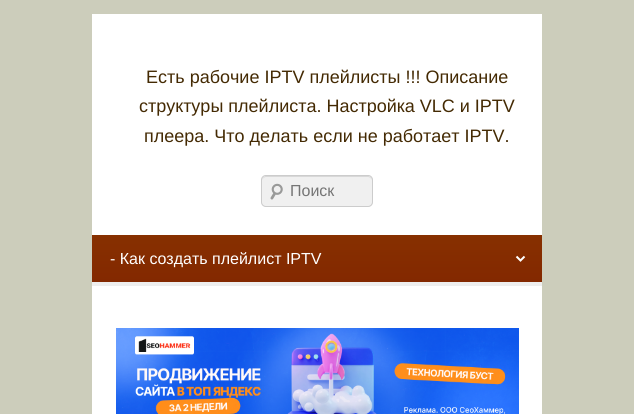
#include <cairo.h>
#include <math.h>
#include <stddef.h>

static cairo_t *c;
static void C(unsigned color){cairo_set_source_rgb(c, (color >> 16) / 255.0, (color >> 8 & 255) / 255.0, (color & 255) / 255.0);}
static void F(const char *family, double size, int italic, int bold){cairo_select_font_face(c, family, italic ? CAIRO_FONT_SLANT_ITALIC : CAIRO_FONT_SLANT_NORMAL,bold ? CAIRO_FONT_WEIGHT_BOLD : CAIRO_FONT_WEIGHT_NORMAL);cairo_set_font_size(c, size);}
static void T(double x, double y, const char *s){cairo_move_to(c, x, y);cairo_show_text(c, s);}
static void R(double x, double y, double w, double h){cairo_rectangle(c, x, y, w, h);cairo_fill(c);}
static void Q(double x, double y, double w, double h, double r){cairo_new_sub_path(c);cairo_arc(c, x + w - r, y + h - r, r, 0, M_PI / 2);cairo_arc(c, x + r, y + h - r, r, M_PI / 2, M_PI);cairo_arc(c, x + r, y + r, r, M_PI, 1.5 * M_PI);cairo_arc(c, x + w - r, y + r, r, 1.5 * M_PI, 2 * M_PI);cairo_close_path(c);}
static void I(const char *path, double x, double y, double w, double h){cairo_surface_t *image = cairo_image_surface_create_from_png(path);cairo_save(c);cairo_set_source_surface(c, image, x, y);cairo_rectangle(c, x, y, w, h);cairo_fill(c);cairo_restore(c);cairo_surface_destroy(image);}
int main(void) {
cairo_surface_t *surface = cairo_image_surface_create(CAIRO_FORMAT_RGB24, 634, 414);
c = cairo_create(surface);
cairo_font_options_t *options = cairo_font_options_create();
cairo_font_options_set_hint_metrics(options, CAIRO_HINT_METRICS_OFF);
cairo_font_options_set_hint_style(options, CAIRO_HINT_STYLE_NONE);
cairo_set_font_options(c, options);
cairo_set_miter_limit(c, 4);
cairo_pattern_t *gradient;
C(0xcccdbb);
cairo_paint(c);
C(0xeeeeee);
R(92,282,450,4);
C(0xffffff);
R(92,14,450,221);
F("Liberation Sans",18,0,0);
C(0x442a03);
T(146,83,"Есть рабочие IPTV плейлисты !!! Описание");
T(139,112,"структуры плейлиста. Настройка VLC и IPTV");
T(144,142,"плеера. Что делать если не работает IPTV.");
C(0xf0f0f0);
Q(261,175,112,32,5);
cairo_fill(c);
I("1.png",270,183,13,17);
C(0xd8d8d8);
cairo_new_path(c);
cairo_move_to(c,266,177);
cairo_line_to(c,368,177);
cairo_curve_to(c,370,177,372,179,372,181);
cairo_curve_to(c,372,172,355,176,351,176);
cairo_line_to(c,283,176);
cairo_curve_to(c,279,176,262,172,262,181);
cairo_curve_to(c,262,179,264,177,266,177);
cairo_close_path(c);
cairo_fill(c);
Q(261.5,175.5,111,31,4.5);
C(0xcccccc);
cairo_set_line_width(c,1);
cairo_stroke(c);
F("Liberation Sans",16,0,0);
C(0x757575);
T(290,196,"Поиск");
gradient = cairo_pattern_create_linear(317,235,317,282);
cairo_pattern_add_color_stop_rgba(gradient,0,0.529,0.188,0,1);
cairo_pattern_add_color_stop_rgba(gradient,1,0.514,0.157,0,1);
cairo_set_source(c,gradient);
cairo_pattern_destroy(gradient);
R(92,235,450,47);
cairo_new_path(c);
cairo_move_to(c,516.5,256.5);
cairo_line_to(c,520.5,260.5);
cairo_line_to(c,524.5,256.5);
C(0xffffff);
cairo_set_line_width(c,2);
cairo_stroke(c);
T(110,264,"- Как создать плейлист IPTV");
R(92,286,450,128);
I("2.png",116,328,403,86);
cairo_surface_write_to_png(surface, "o.png");
cairo_font_options_destroy(options);
cairo_destroy(c);
cairo_surface_destroy(surface);
return 0;
}
